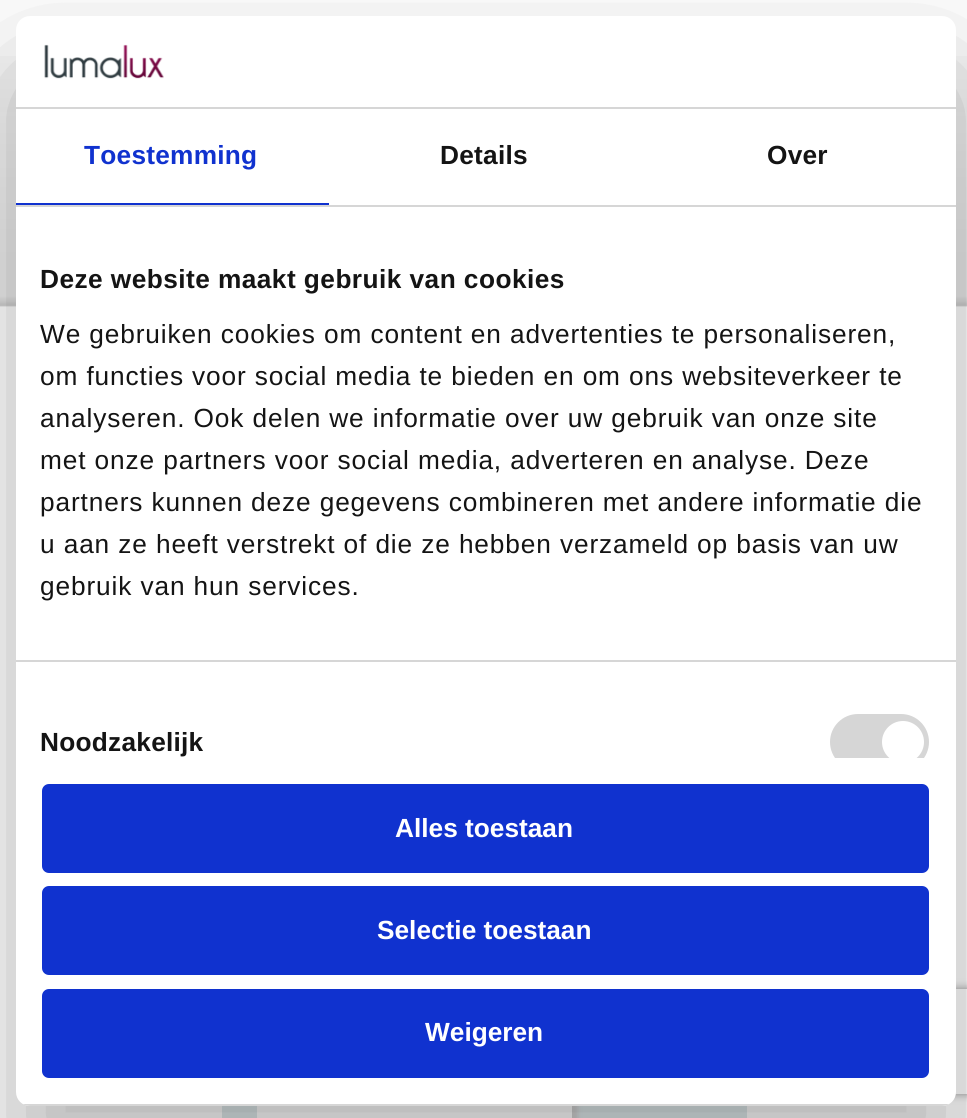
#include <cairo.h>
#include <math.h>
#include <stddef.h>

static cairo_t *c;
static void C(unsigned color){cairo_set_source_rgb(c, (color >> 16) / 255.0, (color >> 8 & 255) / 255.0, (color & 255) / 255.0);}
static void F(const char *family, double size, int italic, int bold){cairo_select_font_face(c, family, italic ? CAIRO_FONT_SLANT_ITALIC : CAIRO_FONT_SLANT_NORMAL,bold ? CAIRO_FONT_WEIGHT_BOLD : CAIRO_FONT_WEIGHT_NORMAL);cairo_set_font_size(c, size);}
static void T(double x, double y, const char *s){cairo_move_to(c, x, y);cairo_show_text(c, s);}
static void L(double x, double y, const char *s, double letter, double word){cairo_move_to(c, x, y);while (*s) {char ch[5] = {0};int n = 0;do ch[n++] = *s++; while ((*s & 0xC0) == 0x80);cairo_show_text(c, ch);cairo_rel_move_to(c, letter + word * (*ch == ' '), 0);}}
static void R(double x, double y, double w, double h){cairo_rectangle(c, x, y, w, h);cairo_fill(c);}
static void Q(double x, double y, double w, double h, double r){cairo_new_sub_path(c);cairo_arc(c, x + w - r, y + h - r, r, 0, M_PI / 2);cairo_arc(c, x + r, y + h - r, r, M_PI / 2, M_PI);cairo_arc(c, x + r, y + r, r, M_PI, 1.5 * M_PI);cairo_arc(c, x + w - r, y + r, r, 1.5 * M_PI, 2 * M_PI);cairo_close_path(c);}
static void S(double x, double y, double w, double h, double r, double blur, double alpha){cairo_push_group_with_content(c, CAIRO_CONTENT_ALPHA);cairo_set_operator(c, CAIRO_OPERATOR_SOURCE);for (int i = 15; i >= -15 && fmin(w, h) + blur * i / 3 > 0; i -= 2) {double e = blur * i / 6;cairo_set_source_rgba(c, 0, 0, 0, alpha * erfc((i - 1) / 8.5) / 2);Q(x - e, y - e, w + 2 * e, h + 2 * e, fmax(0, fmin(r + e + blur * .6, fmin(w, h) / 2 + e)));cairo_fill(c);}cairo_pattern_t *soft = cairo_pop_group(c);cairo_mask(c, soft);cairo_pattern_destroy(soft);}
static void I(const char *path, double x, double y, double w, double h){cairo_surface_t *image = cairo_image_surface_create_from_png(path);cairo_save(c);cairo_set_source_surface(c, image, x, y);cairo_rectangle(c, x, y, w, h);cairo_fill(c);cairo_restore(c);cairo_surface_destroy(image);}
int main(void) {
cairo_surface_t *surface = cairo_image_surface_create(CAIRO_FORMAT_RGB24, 967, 1118);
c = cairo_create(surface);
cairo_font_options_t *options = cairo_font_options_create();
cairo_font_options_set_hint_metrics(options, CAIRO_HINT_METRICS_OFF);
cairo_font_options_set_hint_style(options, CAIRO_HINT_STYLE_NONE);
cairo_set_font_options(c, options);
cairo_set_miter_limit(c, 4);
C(0xffffff);
cairo_paint(c);
I("1.png",0,56,967,251);
C(0xdfe9eb);
R(222,1106,525,12);
C(0xd2d2d2);
S(263,1076,315,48,0,2,1);
C(0xffffff);
R(257,1106,315,12);
C(0x000000);
S(16,72,940,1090,14,59.5,.3);
cairo_save(c);
cairo_set_fill_rule(c,CAIRO_FILL_RULE_EVEN_ODD);
cairo_new_path(c);
cairo_move_to(c,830,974);
cairo_line_to(c,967,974);
cairo_line_to(c,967,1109);
cairo_line_to(c,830,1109);
cairo_close_path(c);
cairo_move_to(c,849,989);
cairo_line_to(c,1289,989);
cairo_curve_to(c,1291,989,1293,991,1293,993);
cairo_line_to(c,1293,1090);
cairo_curve_to(c,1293,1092,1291,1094,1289,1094);
cairo_line_to(c,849,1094);
cairo_curve_to(c,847,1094,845,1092,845,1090);
cairo_line_to(c,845,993);
cairo_curve_to(c,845,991,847,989,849,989);
cairo_close_path(c);
cairo_clip(c);
C(0x808080);
S(845,989,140,105,4,4.5,1);
cairo_restore(c);
C(0xffffff);
Q(16,16,940,1090,14);
cairo_fill(c);
C(0xd6d6d6);
R(16,107,940,2);
I("2.png",44,44,120,35);
R(16,205,940,2);
C(0x1032cf);
R(16,203,313,2);
F("Liberation Sans",26.25,0,1);
L(84,164,"Toestemming",.25,0);
C(0x141414);
L(440,164,"Details",.25,0);
L(767,164,"Over",.25,0);
C(0xd6d6d6);
R(16,660,940,2);
C(0x141414);
L(40,288,"Deze website maakt gebruik van cookies",.45,0);
F("Liberation Sans",26.25,0,0);
L(40,343,"We gebruiken cookies om content en advertenties te personaliseren,",.88,0);
L(40,385,"om functies voor social media te bieden en om ons websiteverkeer te",.88,0);
L(40,427,"analyseren. Ook delen we informatie over uw gebruik van onze site",.88,0);
L(40,469,"met onze partners voor social media, adverteren en analyse. Deze",.88,0);
L(40,511,"partners kunnen deze gegevens combineren met andere informatie die",.88,0);
L(40,553,"u aan ze heeft verstrekt of die ze hebben verzameld op basis van uw",.88,0);
L(40,595,"gebruik van hun services.",.88,0);
F("Liberation Sans",26.25,0,1);
L(40,751,"Noodzakelijk",.25,0);
cairo_save(c);
cairo_rectangle(c,16,207,940,551);
cairo_clip(c);
C(0xd6d6d6);
Q(830,714,99,56,28);
cairo_fill(c);
C(0xffffff);
cairo_arc(c,903,742,21,0,2 * M_PI);
cairo_fill(c);
cairo_restore(c);
cairo_save(c);
Q(16,16,940,1090,14);
cairo_clip(c);
C(0xd6d6d6);
R(16,1104,940,2);
cairo_restore(c);
C(0x1032cf);
Q(44,786,883,85,5);
cairo_fill_preserve(c);
cairo_set_line_width(c,4);
cairo_stroke(c);
C(0xffffff);
T(395,837,"Alles toestaan");
C(0x1032cf);
Q(44,888,883,85,5);
cairo_fill_preserve(c);
cairo_stroke(c);
C(0xffffff);
T(377,939,"Selectie toestaan");
C(0x1032cf);
Q(44,991,883,85,5);
cairo_fill_preserve(c);
cairo_stroke(c);
C(0xffffff);
T(425,1041,"Weigeren");
cairo_surface_write_to_png(surface, "o.png");
cairo_font_options_destroy(options);
cairo_destroy(c);
cairo_surface_destroy(surface);
return 0;
}
